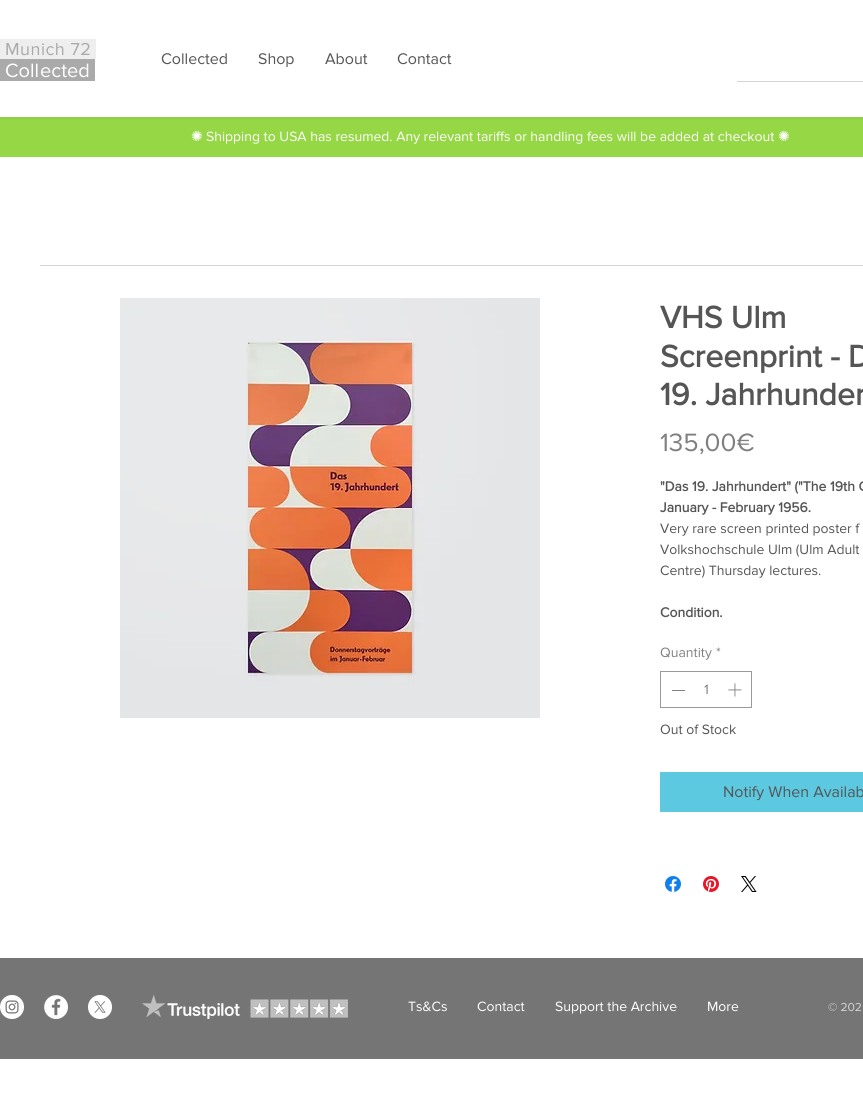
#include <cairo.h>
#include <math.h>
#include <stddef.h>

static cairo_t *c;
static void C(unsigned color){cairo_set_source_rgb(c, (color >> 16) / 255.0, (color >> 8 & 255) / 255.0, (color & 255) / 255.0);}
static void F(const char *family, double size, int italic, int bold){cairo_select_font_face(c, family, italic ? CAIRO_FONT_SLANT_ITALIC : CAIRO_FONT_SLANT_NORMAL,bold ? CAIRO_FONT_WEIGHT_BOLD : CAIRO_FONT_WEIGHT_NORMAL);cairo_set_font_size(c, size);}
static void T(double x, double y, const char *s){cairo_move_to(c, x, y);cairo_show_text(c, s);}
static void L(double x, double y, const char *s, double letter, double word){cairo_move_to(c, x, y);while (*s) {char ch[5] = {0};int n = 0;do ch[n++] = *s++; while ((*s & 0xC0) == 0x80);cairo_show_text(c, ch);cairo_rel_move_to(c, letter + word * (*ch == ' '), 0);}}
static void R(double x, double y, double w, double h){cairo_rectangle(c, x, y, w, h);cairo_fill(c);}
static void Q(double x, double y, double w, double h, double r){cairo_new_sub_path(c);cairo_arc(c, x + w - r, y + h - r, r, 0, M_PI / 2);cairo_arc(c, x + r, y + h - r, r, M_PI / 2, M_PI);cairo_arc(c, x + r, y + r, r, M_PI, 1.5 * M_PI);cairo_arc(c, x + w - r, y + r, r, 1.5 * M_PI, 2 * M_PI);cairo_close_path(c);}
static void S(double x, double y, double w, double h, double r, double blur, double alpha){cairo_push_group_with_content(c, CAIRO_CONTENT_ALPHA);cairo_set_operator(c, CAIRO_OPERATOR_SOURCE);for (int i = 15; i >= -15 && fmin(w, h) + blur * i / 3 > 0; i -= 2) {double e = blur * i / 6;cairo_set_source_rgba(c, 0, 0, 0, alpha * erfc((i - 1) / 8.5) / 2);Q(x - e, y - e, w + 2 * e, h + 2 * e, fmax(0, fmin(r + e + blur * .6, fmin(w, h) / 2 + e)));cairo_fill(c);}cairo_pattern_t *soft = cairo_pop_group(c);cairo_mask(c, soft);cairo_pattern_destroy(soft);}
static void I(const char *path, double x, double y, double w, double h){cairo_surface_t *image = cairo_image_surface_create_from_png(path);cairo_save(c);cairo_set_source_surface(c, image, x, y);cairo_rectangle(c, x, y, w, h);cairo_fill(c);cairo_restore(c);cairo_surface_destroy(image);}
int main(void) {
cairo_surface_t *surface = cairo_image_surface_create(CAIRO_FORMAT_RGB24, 863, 1100);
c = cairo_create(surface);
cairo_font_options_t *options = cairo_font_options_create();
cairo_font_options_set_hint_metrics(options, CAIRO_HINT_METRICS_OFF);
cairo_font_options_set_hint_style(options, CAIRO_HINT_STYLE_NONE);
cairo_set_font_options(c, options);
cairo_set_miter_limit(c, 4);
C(0xffffff);
cairo_paint(c);
C(0x96d746);
R(0,117,863,40);
cairo_save(c);
cairo_rectangle(c,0,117,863,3);
cairo_clip(c);
C(0x000000);
S(0,1,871,117,0,2.5,.09);
cairo_restore(c);
C(0xeeeeee);
R(0,39,96,20);
F("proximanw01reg",18,0,0);
C(0xaaaaaa);
L(5,55,"Munich 72",.5,0);
R(0,59,95,22);
F("proximanw01reg",20,0,0);
C(0xffffff);
T(5,77,"Co");
T(30,77,"ll");
T(40,77,"ected");
F("proximanw01reg",16,0,0);
C(0x555555);
T(161,64,"Collected");
T(258,64,"Shop");
T(325,64,"About");
T(397,64,"Contact");
C(0xd5d5d5);
R(737,81,126,1);
F("DejaVu Sans",14,0,0);
C(0xffffff);
T(191,141,"✺");
F("proximanw01reg",14,0,0);
T(206,141,"Shipping to USA has resumed. Any relevant tariffs or handling fees will be added at checkout");
F("DejaVu Sans",14,0,0);
T(778,141,"✺");
C(0xd5d5d5);
R(40,265,823,1);
I("1.png",120,298,420,420);
F("proximanw01reg",32,0,1);
C(0x555555);
T(660,328,"VHS Ulm");
T(660,367,"Screenprint - D");
T(660,405,"19. Jahrhunder");
F("proximanw01reg",26,0,0);
C(0x808080);
T(660,451,"135,00€");
F("proximanw01reg",14,0,1);
C(0x555555);
T(660,491,"\"Das 19. Jahrhundert\" (\"The 19th C");
T(660,512,"January - February 1956.");
F("proximanw01reg",14,0,0);
T(660,533,"Very rare screen printed poster f");
T(660,554,"Volkshochschule Ulm (Ulm Adult");
T(660,575,"Centre) Thursday lectures.");
F("proximanw01reg",14,0,1);
T(660,617,"Condition.");
F("proximanw01reg",14,0,0);
C(0x808080);
T(660,657,"Quantity");
T(716,657,"*");
cairo_rectangle(c,660.5,671.5,91,36);
C(0x999999);
cairo_set_line_width(c,1);
cairo_stroke(c);
C(0x808080);
R(672,690,13,1);
T(704,694,"1");
I("2.png",728,683,14,14);
C(0x555555);
T(660,734,"Out of Stock");
C(0x5cc9e1);
R(660,772,203,40);
F("proximanw01reg",16,0,0);
C(0x555555);
T(723,797,"Notify When Availab");
I("3.png",665,876,16,16);
I("4.png",703,876,16,16);
I("5.png",741,876,16,16);
C(0x757575);
R(0,958,863,101);
I("6.png",0,995,24,24);
I("7.png",44,995,24,24);
I("8.png",88,995,24,24);
I("9.png",142,995,206,24);
F("proximanw01reg",14,0,0);
C(0xffffff);
T(408,1011,"Ts&Cs");
T(477,1011,"Contact");
T(555,1011,"Support the Archive");
T(707,1011,"More");
F("proximanw01reg",12,0,0);
C(0xd5d5d5);
T(828,1011,"© 202");
cairo_surface_write_to_png(surface, "o.png");
cairo_font_options_destroy(options);
cairo_destroy(c);
cairo_surface_destroy(surface);
return 0;
}
